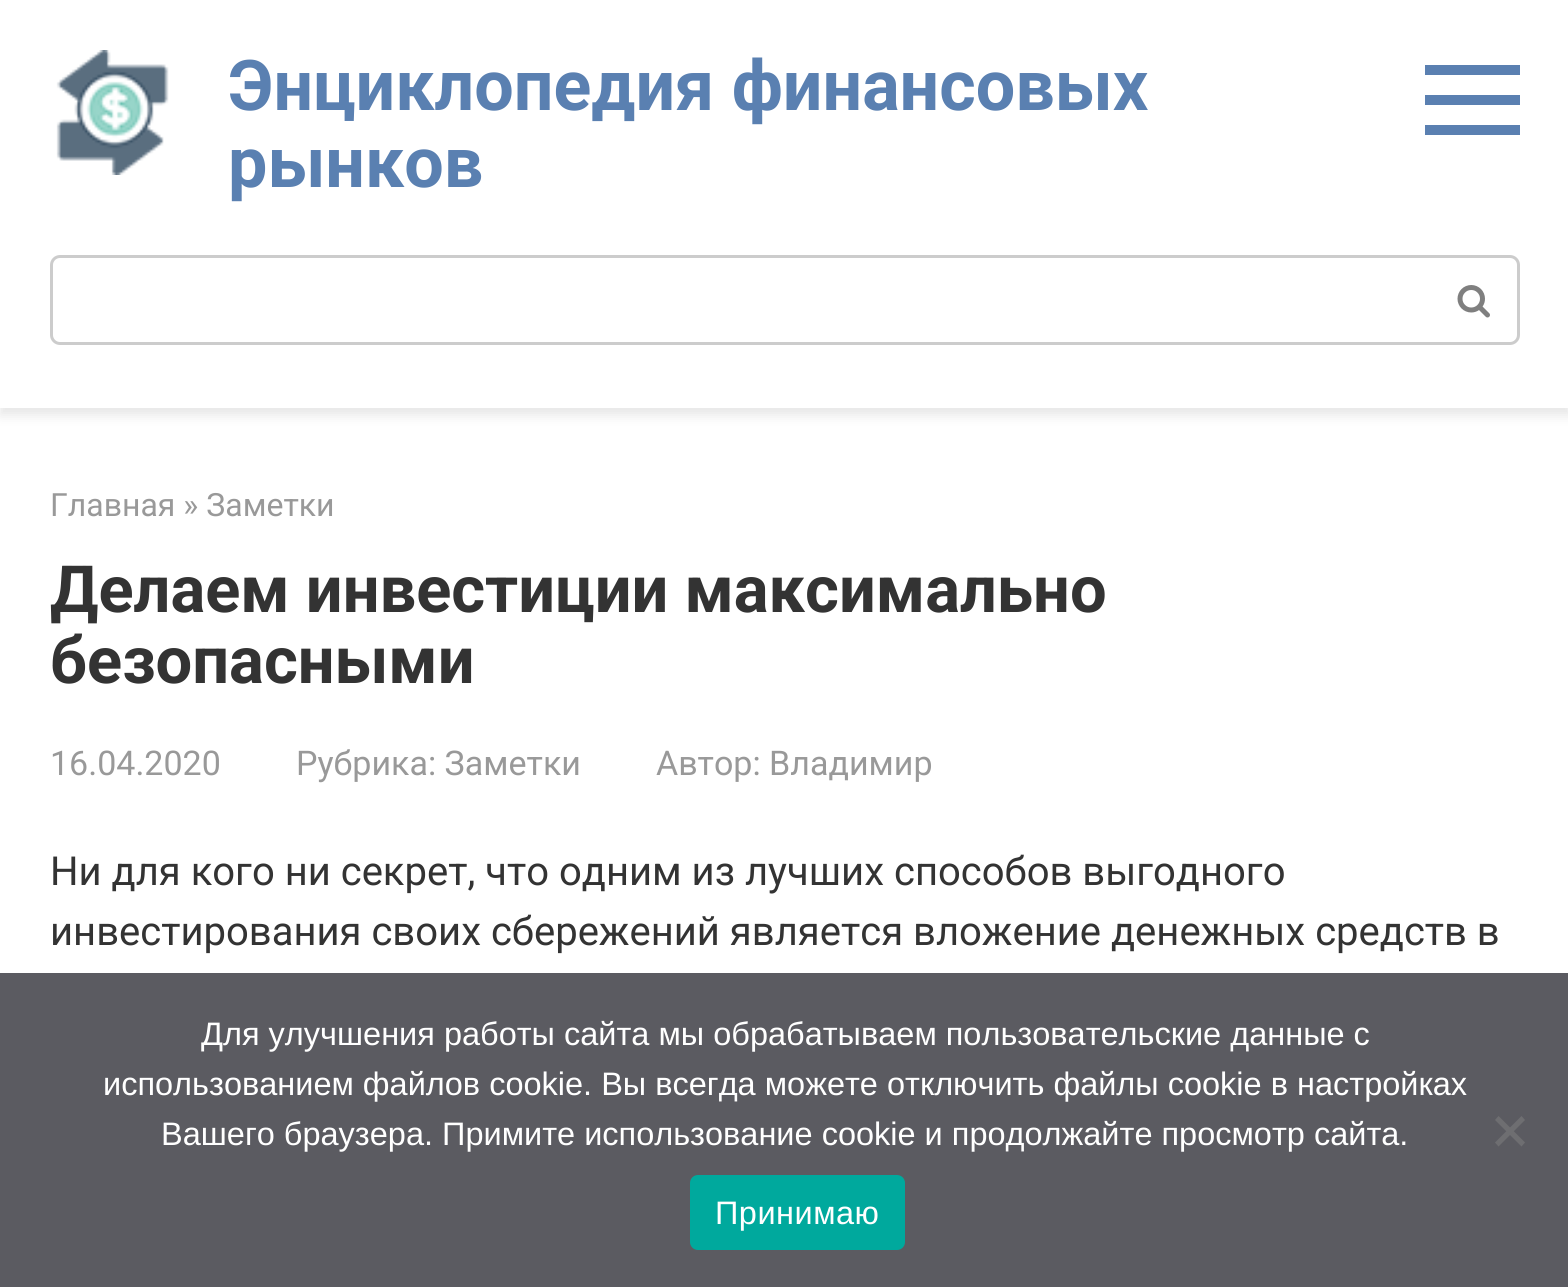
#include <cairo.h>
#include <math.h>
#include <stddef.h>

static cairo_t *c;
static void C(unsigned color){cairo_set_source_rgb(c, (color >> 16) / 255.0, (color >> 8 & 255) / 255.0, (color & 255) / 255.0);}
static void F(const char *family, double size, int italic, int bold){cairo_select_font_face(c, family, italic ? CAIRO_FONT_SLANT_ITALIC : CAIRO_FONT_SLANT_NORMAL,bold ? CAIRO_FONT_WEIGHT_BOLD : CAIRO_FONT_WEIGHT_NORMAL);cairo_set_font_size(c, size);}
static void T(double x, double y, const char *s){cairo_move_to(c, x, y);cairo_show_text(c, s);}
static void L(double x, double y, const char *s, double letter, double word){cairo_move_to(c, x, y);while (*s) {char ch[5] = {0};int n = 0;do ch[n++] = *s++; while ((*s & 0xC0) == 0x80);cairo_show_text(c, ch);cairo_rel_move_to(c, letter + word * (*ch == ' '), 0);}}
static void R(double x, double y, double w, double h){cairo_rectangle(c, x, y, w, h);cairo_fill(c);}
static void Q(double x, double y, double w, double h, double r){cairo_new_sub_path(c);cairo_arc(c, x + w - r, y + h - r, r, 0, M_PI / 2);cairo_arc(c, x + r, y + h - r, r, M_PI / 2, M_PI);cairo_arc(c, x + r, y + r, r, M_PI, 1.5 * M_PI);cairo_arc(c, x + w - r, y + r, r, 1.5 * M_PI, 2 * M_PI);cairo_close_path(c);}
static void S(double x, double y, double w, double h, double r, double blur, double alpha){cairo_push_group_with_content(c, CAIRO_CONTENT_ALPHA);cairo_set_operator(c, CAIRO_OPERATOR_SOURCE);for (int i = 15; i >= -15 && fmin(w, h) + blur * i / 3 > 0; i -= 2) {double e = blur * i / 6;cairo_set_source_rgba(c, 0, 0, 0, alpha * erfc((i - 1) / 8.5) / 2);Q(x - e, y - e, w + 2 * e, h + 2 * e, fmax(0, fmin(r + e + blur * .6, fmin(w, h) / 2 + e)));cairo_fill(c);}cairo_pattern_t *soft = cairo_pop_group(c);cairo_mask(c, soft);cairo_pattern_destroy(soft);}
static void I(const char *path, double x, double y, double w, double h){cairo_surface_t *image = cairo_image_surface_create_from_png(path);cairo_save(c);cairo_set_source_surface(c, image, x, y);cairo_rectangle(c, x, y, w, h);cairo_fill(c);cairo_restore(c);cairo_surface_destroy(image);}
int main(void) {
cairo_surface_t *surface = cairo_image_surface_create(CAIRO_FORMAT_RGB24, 1568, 1287);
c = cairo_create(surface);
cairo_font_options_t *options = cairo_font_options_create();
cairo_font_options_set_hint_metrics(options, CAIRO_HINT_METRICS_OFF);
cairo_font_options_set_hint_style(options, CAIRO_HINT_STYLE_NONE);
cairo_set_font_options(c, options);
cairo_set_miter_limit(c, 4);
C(0xffffff);
cairo_paint(c);
C(0x000000);
S(0,8,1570,407,0,6,.1);
C(0xffffff);
R(0,0,1568,408);
I("1.png",56,50,113,125);
F("Roboto",70,0,1);
C(0x5a80b1);
T(228,110,"Энциклопедия финансовых");
T(228,187,"рынков");
R(1425,65,95,10);
R(1425,125,95,10);
R(1425,95,95,10);
Q(51.5,256.5,1467,87,8.5);
C(0xcccccc);
cairo_set_line_width(c,3);
cairo_stroke(c);
I("2.png",1457,285,33,33);
F("Roboto",32,0,0);
C(0x999999);
T(50,516,"Главная » Заметки");
F("Roboto",65,0,1);
C(0x333333);
T(50,612,"Делаем инвестиции максимально");
T(50,683,"безопасными");
F("Roboto",34,0,0);
C(0x999999);
T(50,775,"16.04.2020");
T(296,775,"Рубрика: Заметки");
T(656,775,"Автор: Владимир");
F("Roboto",40,0,0);
C(0x333333);
T(50,885,"Ни для кого ни секрет, что одним из лучших способов выгодного");
T(50,945,"инвестирования своих сбережений является вложение денежных средств в");
cairo_set_source_rgba(c,0.196,0.196,0.227,0.8);
R(0,973,1568,314);
F("Liberation Sans",32.5,0,0);
C(0xffffff);
T(201,1045,"Для улучшения работы сайта мы обрабатываем пользовательские данные с");
T(103,1095,"использованием файлов cookie. Вы всегда можете отключить файлы cookie в настройках");
T(161,1145,"Вашего браузера. Примите использование cookie и продолжайте просмотр сайта.");
C(0x6e6e71);
cairo_new_path(c);
cairo_move_to(c,1521.5,1116);
cairo_line_to(c,1525,1120);
cairo_line_to(c,1498.5,1146.5);
cairo_line_to(c,1495,1142.5);
cairo_close_path(c);
cairo_fill(c);
cairo_new_path(c);
cairo_move_to(c,1495,1120);
cairo_line_to(c,1498.5,1116);
cairo_line_to(c,1525,1142.5);
cairo_line_to(c,1521.5,1146.5);
cairo_close_path(c);
cairo_fill(c);
C(0x00a99d);
Q(690,1175,215,75,8);
cairo_fill(c);
C(0xffffff);
L(715,1224,"Принимаю",.5,0);
cairo_surface_write_to_png(surface, "o.png");
cairo_font_options_destroy(options);
cairo_destroy(c);
cairo_surface_destroy(surface);
return 0;
}
